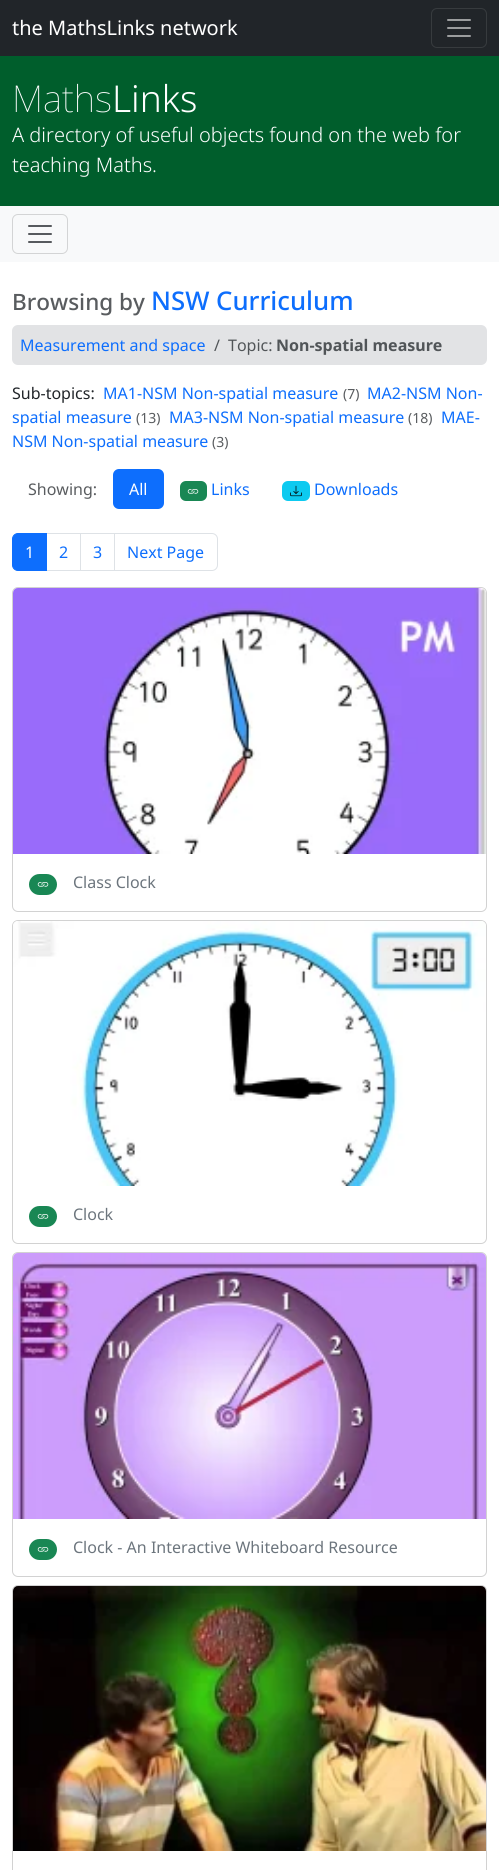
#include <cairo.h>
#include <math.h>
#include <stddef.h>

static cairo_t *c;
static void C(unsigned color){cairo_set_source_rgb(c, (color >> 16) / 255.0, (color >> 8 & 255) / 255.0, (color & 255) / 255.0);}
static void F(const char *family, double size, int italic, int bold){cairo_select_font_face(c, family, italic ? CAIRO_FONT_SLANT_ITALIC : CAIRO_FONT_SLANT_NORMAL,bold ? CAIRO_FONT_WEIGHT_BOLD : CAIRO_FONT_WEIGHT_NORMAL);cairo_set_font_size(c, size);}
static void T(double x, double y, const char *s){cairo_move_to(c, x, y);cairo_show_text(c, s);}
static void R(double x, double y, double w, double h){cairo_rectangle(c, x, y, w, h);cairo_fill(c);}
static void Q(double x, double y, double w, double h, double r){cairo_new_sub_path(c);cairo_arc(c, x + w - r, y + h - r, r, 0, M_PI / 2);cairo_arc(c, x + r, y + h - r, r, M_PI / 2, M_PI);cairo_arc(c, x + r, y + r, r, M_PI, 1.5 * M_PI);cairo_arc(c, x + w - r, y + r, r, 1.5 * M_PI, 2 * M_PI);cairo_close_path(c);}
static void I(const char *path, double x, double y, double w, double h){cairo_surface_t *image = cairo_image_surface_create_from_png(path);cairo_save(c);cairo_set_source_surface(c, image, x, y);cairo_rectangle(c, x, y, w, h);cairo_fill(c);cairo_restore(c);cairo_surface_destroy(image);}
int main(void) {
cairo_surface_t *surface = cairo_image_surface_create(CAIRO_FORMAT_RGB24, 499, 1870);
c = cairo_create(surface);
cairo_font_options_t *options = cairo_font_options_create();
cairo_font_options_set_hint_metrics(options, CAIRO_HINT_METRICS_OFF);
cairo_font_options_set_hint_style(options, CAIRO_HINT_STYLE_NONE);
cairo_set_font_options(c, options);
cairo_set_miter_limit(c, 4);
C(0xffffff);
cairo_paint(c);
C(0x212529);
R(0,0,499,56);
F("Noto Sans",20,0,0);
C(0xffffff);
T(12,35,"the MathsLinks network");
Q(431.5,8.5,55,39,5.5);
C(0x373b3e);
cairo_set_line_width(c,1);
cairo_stroke(c);
I("1.png",447,19,24,18);
C(0x005e2c);
R(0,56,499,150);
F("Noto Sans Thin",37,0,0);
C(0xffffff);
T(12,112,"Maths");
F("Noto Sans Light",37,0,0);
T(112,112,"Links");
F("Noto Sans Light",20,0,0);
T(12,142,"A directory of useful objects found on the web for");
T(12,172,"teaching Maths.");
C(0xf8f9fa);
R(0,206,499,56);
Q(12.5,214.5,55,39,5.5);
C(0xd3d4d5);
cairo_stroke(c);
I("2.png",28,225,24,18);
F("Noto Sans Medium",22.5,0,0);
C(0x595c5f);
T(12,310,"Browsing by");
F("Noto Sans Medium",25.75,0,0);
C(0x0d6efd);
T(151,310,"NSW Curriculum");
C(0xe2e3e5);
Q(12,325,475,40,6);
cairo_fill(c);
F("Noto Sans",16,0,0);
C(0x0d6efd);
T(20,351,"Measurement and space");
C(0x515558);
T(214,351,"/");
T(228,351,"Topic:");
F("Noto Sans",16,0,1);
T(276,351,"Non-spatial measure");
F("Noto Sans",16,0,0);
C(0x212529);
T(12,399,"Sub-topics:");
C(0x0d6efd);
T(103,399,"MA1-NSM Non-spatial measure");
F("Noto Sans",14,0,0);
C(0x595c5f);
T(343,399,"(7)");
F("Noto Sans",16,0,0);
C(0x0d6efd);
T(367,399,"MA2-NSM Non-");
T(12,423,"spatial measure");
F("Noto Sans",14,0,0);
C(0x595c5f);
T(136,423,"(13)");
F("Noto Sans",16,0,0);
C(0x0d6efd);
T(169,423,"MA3-NSM Non-spatial measure");
F("Noto Sans",14,0,0);
C(0x595c5f);
T(408,423,"(18)");
F("Noto Sans",16,0,0);
C(0x0d6efd);
T(441,423,"MAE-");
T(12,447,"NSM Non-spatial measure");
F("Noto Sans",14,0,0);
C(0x595c5f);
T(212,447,"(3)");
F("Noto Sans",16,0,0);
T(28,495,"Showing:");
C(0x0d6efd);
Q(113,469,51,40,6);
cairo_fill(c);
C(0xffffff);
T(129,495,"All");
C(0x198754);
Q(180,481,27,20,6);
cairo_fill(c);
I("3.png",187,489,12,5);
C(0x0d6efd);
T(211,495,"Links");
C(0x0dcaf0);
Q(282,481,28,20,6);
cairo_fill(c);
I("4.png",290,485,12,12);
C(0x0d6efd);
T(314,495,"Downloads");
cairo_rectangle(c,46.5,533.5,34,37);
C(0xdee2e6);
cairo_stroke(c);
C(0x0d6efd);
cairo_new_path(c);
cairo_move_to(c,18,533.5);
cairo_line_to(c,46.5,533.5);
cairo_line_to(c,46.5,570.5);
cairo_line_to(c,18,570.5);
cairo_curve_to(c,15,570.5,12.5,568,12.5,565);
cairo_line_to(c,12.5,539);
cairo_curve_to(c,12.5,536,15,533.5,18,533.5);
cairo_close_path(c);
cairo_fill_preserve(c);
cairo_stroke(c);
C(0xffffff);
T(25,558,"1");
C(0x0d6efd);
T(59,558,"2");
cairo_rectangle(c,80.5,533.5,34,37);
C(0xdee2e6);
cairo_stroke(c);
C(0x0d6efd);
T(93,558,"3");
C(0xffffff);
cairo_new_path(c);
cairo_move_to(c,114.5,533.5);
cairo_line_to(c,212,533.5);
cairo_curve_to(c,215,533.5,217.5,536,217.5,539);
cairo_line_to(c,217.5,565);
cairo_curve_to(c,217.5,568,215,570.5,212,570.5);
cairo_line_to(c,114.5,570.5);
cairo_close_path(c);
cairo_fill_preserve(c);
C(0xdee2e6);
cairo_stroke(c);
C(0x0d6efd);
T(127,558,"Next Page");
Q(12.5,587.5,474,324,5.5);
C(0xd2d2d2);
cairo_stroke(c);
I("5.png",13,588,473,266);
C(0x198754);
Q(29,874,28,21,10.5);
cairo_fill(c);
I("3.png",37,882,12,5);
C(0x6c757d);
T(73,888,"Class Clock");
Q(12.5,920.5,474,323,5.5);
C(0xd2d2d2);
cairo_stroke(c);
I("6.png",13,921,473,265);
C(0x198754);
Q(29,1206,28,21,10.5);
cairo_fill(c);
I("3.png",37,1214,12,5);
C(0x6c757d);
T(73,1220,"Clock");
Q(12.5,1252.5,474,324,5.5);
C(0xd2d2d2);
cairo_stroke(c);
I("7.png",13,1253,473,266);
C(0x198754);
Q(29,1539,28,21,10.5);
cairo_fill(c);
I("3.png",37,1547,12,5);
C(0x6c757d);
T(73,1553,"Clock - An Interactive Whiteboard Resource");
Q(12.5,1585.5,474,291,5.5);
C(0xd2d2d2);
cairo_stroke(c);
I("8.png",13,1586,473,265);
cairo_surface_write_to_png(surface, "o.png");
cairo_font_options_destroy(options);
cairo_destroy(c);
cairo_surface_destroy(surface);
return 0;
}
